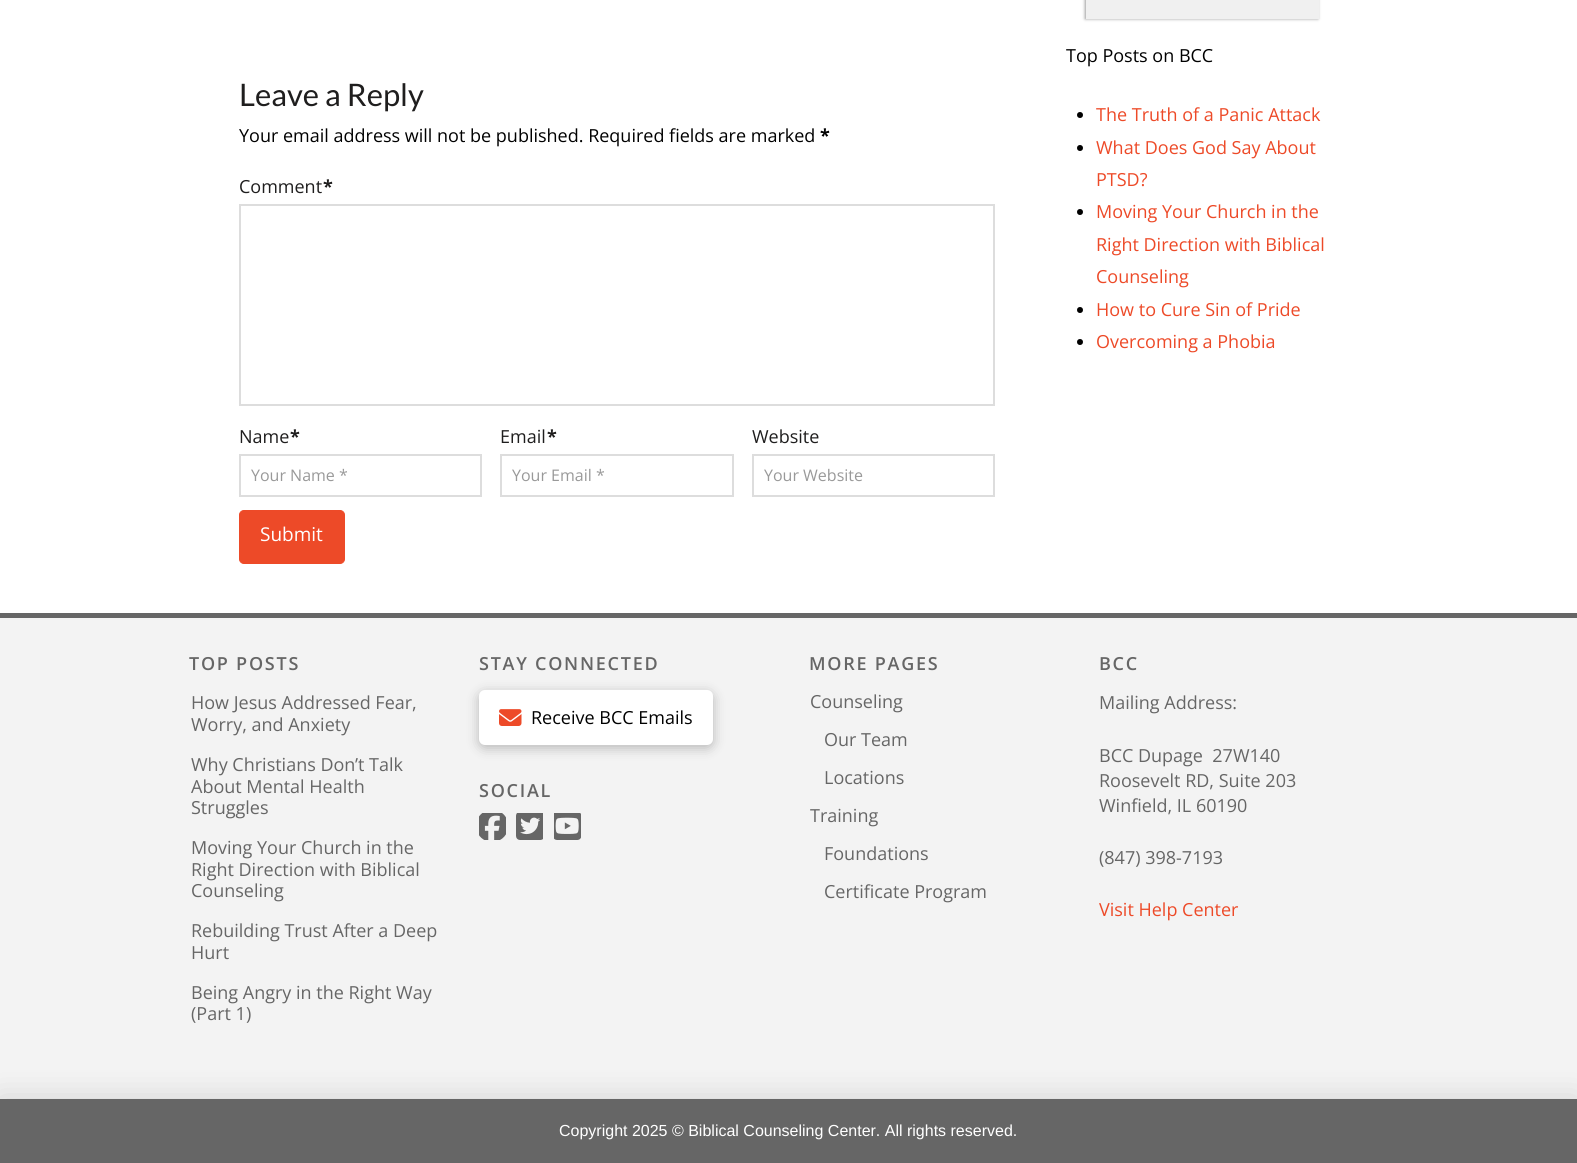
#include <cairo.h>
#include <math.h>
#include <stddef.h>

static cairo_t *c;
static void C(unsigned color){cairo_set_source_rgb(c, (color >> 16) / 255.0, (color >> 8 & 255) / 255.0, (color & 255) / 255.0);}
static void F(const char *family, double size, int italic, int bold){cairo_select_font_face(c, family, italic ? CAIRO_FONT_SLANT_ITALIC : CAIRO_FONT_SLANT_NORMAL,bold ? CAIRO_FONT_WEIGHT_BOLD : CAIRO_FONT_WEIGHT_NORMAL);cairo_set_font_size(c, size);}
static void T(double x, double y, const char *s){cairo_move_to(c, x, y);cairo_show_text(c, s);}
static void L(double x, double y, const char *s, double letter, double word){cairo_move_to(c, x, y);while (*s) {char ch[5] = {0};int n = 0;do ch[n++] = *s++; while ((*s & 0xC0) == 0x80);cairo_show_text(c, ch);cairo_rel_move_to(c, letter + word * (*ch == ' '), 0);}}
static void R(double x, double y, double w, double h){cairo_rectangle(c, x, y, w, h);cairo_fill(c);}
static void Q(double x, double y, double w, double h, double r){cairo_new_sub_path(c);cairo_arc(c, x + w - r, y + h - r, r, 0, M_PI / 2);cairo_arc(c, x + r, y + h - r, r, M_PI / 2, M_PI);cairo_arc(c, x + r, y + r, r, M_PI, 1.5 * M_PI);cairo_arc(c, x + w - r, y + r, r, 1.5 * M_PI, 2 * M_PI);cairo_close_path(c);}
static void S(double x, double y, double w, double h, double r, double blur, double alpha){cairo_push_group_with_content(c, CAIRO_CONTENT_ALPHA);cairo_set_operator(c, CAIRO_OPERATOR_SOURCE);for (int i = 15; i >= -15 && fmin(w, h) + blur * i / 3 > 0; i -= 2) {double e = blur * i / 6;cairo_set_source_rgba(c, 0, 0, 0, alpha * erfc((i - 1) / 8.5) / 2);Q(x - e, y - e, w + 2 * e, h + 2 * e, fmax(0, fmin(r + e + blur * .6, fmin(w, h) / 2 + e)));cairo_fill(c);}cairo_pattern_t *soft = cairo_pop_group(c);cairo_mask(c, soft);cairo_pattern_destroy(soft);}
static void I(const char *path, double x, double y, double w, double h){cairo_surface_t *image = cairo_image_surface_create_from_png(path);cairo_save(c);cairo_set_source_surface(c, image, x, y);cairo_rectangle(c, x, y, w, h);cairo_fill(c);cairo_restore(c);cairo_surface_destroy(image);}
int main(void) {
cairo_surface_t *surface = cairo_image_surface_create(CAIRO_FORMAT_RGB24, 1577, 1163);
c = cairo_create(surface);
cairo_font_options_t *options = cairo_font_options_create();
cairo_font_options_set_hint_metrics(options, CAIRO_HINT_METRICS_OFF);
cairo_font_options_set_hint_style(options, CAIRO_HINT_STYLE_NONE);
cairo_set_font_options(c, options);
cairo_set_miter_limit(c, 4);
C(0xffffff);
cairo_paint(c);
F("Lato",31,0,0);
C(0x1f1e1e);
T(239,106,"Leave a Reply");
F("Open Sans",18,0,0);
C(0x000000);
T(239,142,"Your email address will not be published. Required fields are marked");
F("Open Sans",18,0,1);
T(820,142,"*");
F("Open Sans",18,0,0);
C(0x1f1e1e);
T(239,193,"Comment");
F("Open Sans",18,0,1);
T(323,193,"*");
cairo_rectangle(c,240,205,754,200);
C(0xdddddd);
cairo_stroke(c);
F("Open Sans",18,0,0);
C(0x1f1e1e);
T(239,443,"Name");
F("Open Sans",18,0,1);
T(290,443,"*");
cairo_rectangle(c,240,455,241,41);
C(0xdddddd);
cairo_stroke(c);
F("Open Sans",16,0,0);
C(0x999999);
T(251,481,"Your Name *");
F("Open Sans",18,0,0);
C(0x1f1e1e);
T(500,443,"Email");
F("Open Sans",18,0,1);
T(547,443,"*");
cairo_rectangle(c,501,455,232,41);
C(0xdddddd);
cairo_stroke(c);
F("Open Sans",16,0,0);
C(0x999999);
T(512,481,"Your Email *");
F("Open Sans",18,0,0);
C(0x1f1e1e);
T(752,443,"Website");
cairo_rectangle(c,753,455,241,41);
C(0xdddddd);
cairo_stroke(c);
F("Open Sans",16,0,0);
C(0x999999);
T(764,481,"Your Website");
C(0xed4a28);
Q(239.5,510.5,105,53,4.5);
cairo_fill_preserve(c);
cairo_set_line_width(c,1);
cairo_stroke(c);
F("Open Sans",19,0,0);
C(0xffffff);
T(260,541,"Submit");
C(0x595959);
S(1085,-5,233,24,0,1.5,.6);
C(0xf0f0f0);
R(1086,0,233,19);
F("Open Sans",18,0,0);
C(0x000000);
T(1066,62,"Top Posts on BCC");
cairo_new_path(c);
cairo_arc(c,1080,115,3,0,2 * M_PI);
cairo_fill(c);
C(0xed4a28);
T(1096,121,"The Truth of a Panic Attack");
C(0x000000);
cairo_new_path(c);
cairo_arc(c,1080,148,3,0,2 * M_PI);
cairo_fill(c);
C(0xed4a28);
T(1096,154,"What Does God Say About");
T(1096,186,"PTSD?");
C(0x000000);
cairo_new_path(c);
cairo_arc(c,1080,212,3,0,2 * M_PI);
cairo_fill(c);
C(0xed4a28);
T(1096,218,"Moving Your Church in the");
T(1096,251,"Right Direction with Biblical");
T(1096,283,"Counseling");
C(0x000000);
cairo_new_path(c);
cairo_arc(c,1080,310,3,0,2 * M_PI);
cairo_fill(c);
C(0xed4a28);
T(1096,316,"How to Cure Sin of Pride");
C(0x000000);
cairo_new_path(c);
cairo_arc(c,1080,342,3,0,2 * M_PI);
cairo_fill(c);
C(0xed4a28);
T(1096,348,"Overcoming a Phobia");
C(0xf3f3f3);
R(0,618,1577,481);
C(0x666666);
R(0,613,1577,5);
F("Open Sans SemiBold",18,0,0);
L(189,670,"TOP POSTS",1.75,0);
F("Open Sans",18,0,0);
T(191,709,"How Jesus Addressed Fear,");
T(191,731,"Worry, and Anxiety");
T(191,771,"Why Christians Don");
F("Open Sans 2",18,0,0);
T(355,771,"’");
F("Open Sans",18,0,0);
T(358,771,"t Talk");
T(191,793,"About Mental Health");
T(191,814,"Struggles");
T(191,854,"Moving Your Church in the");
T(191,876,"Right Direction with Biblical");
T(191,897,"Counseling");
T(191,937,"Rebuilding Trust After a Deep");
T(191,959,"Hurt");
T(191,999,"Being Angry in the Right Way");
T(191,1020,"(Part 1)");
F("Open Sans SemiBold",18,0,0);
L(479,670,"STAY CONNECTED",1.75,0);
C(0x000000);
S(479,693,234,55,6,6,.25);
C(0xffffff);
Q(479,690,234,55,6);
cairo_fill(c);
I("1.png",499,709,23,17);
F("Open Sans",18,0,0);
C(0x000000);
T(531,724,"Receive BCC Emails");
F("Open Sans SemiBold",18,0,0);
C(0x666666);
L(479,797,"SOCIAL",1.75,0);
I("2.png",479,813,27,27);
I("3.png",516,813,27,27);
I("4.png",554,813,27,27);
L(809,670,"MORE PAGES",1.75,0);
F("Open Sans",18,0,0);
T(810,708,"Counseling");
T(824,746,"Our Team");
T(824,784,"Locations");
T(810,822,"Training");
T(824,860,"Foundations");
T(824,898,"Certificate Program");
F("Open Sans SemiBold",18,0,0);
L(1099,670,"BCC",1.75,0);
F("Open Sans",18,0,0);
T(1099,709,"Mailing Address:");
T(1099,762,"BCC Dupage  27W140");
T(1099,787,"Roosevelt RD, Suite 203");
T(1099,812,"Winfield, IL 60190");
T(1099,864,"(847) 398-7193");
C(0xed4a28);
T(1099,916,"Visit Help Center");
C(0x000000);
S(0,1101,1577,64,0,16,.15);
C(0x666666);
R(0,1099,1577,64);
F("Liberation Sans",16,0,0);
C(0xffffff);
T(559,1136,"Copyright 2025 © Biblical Counseling Center. All rights reserved.");
cairo_surface_write_to_png(surface, "o.png");
cairo_font_options_destroy(options);
cairo_destroy(c);
cairo_surface_destroy(surface);
return 0;
}
